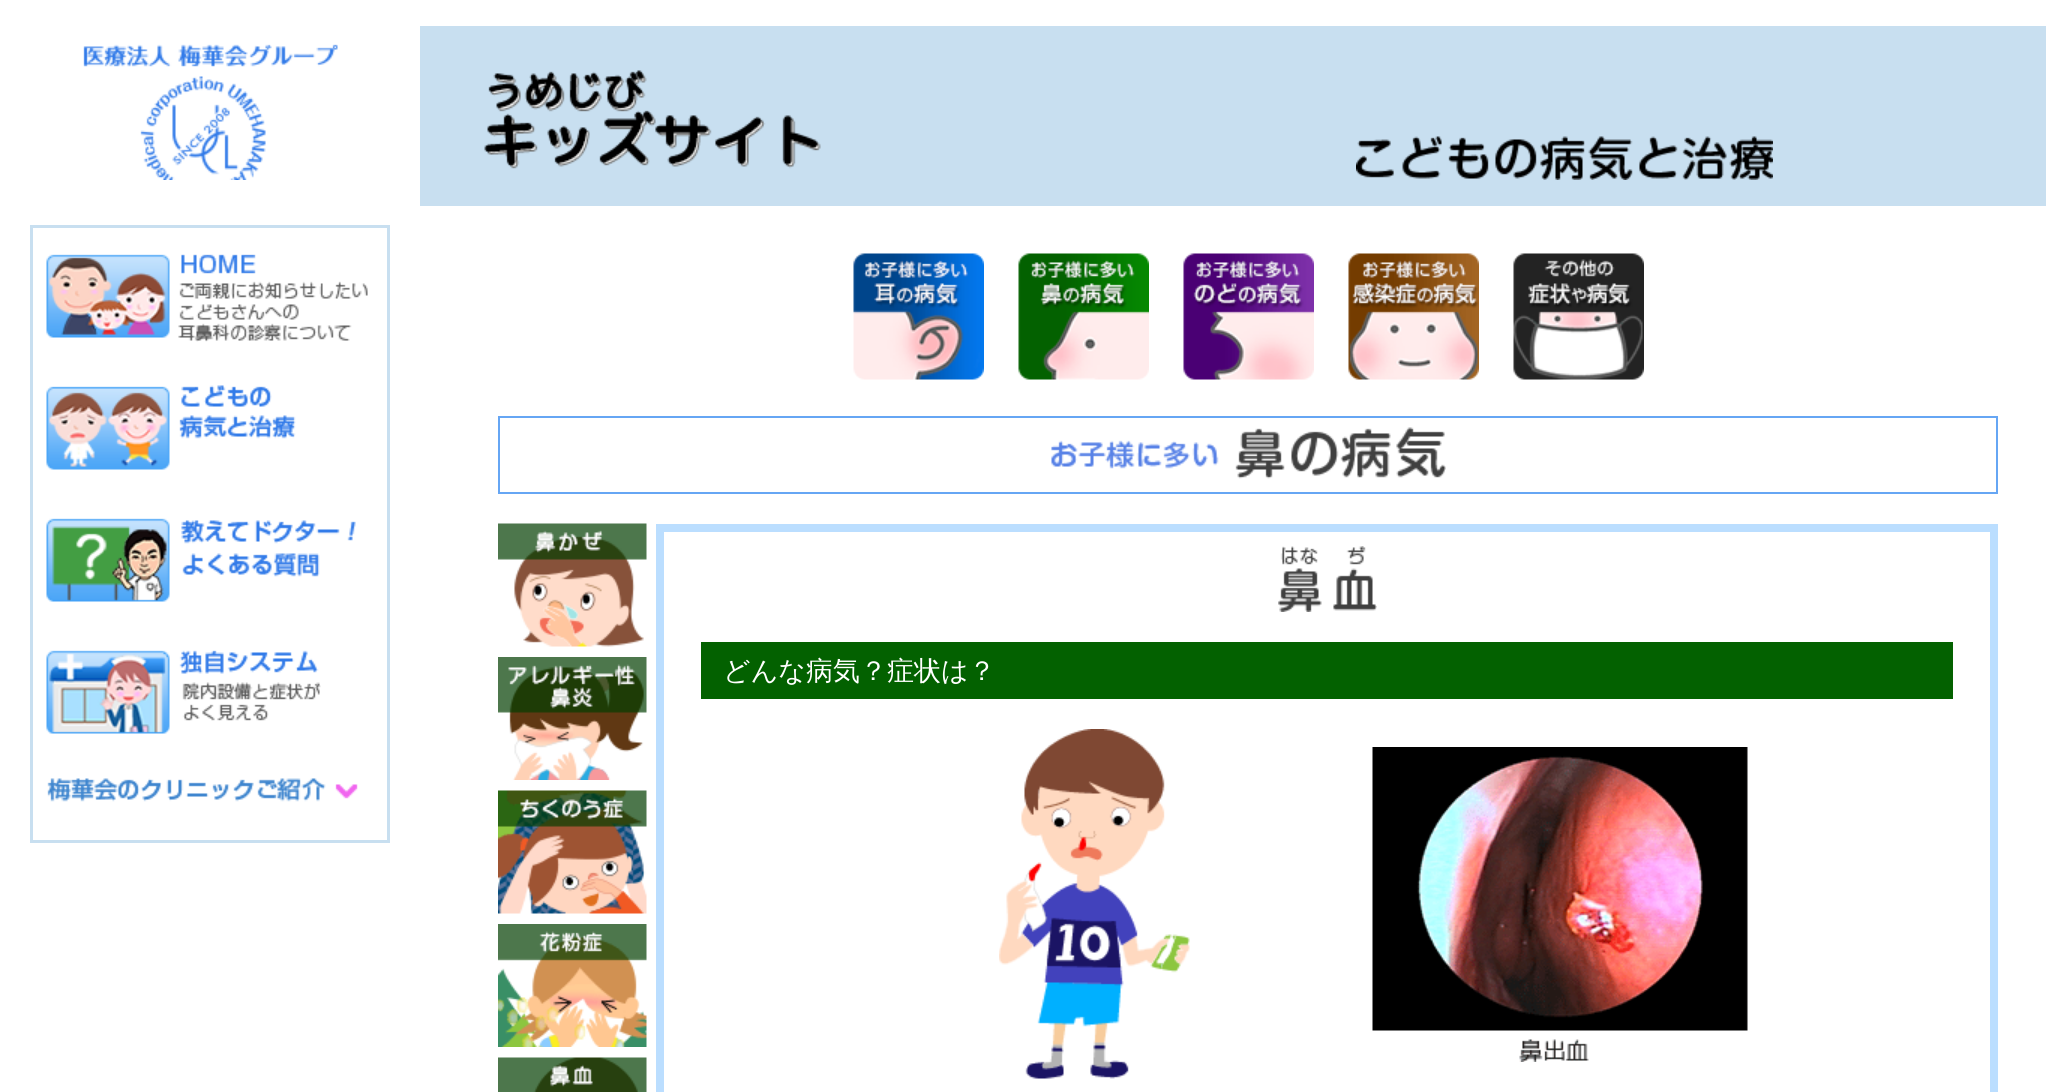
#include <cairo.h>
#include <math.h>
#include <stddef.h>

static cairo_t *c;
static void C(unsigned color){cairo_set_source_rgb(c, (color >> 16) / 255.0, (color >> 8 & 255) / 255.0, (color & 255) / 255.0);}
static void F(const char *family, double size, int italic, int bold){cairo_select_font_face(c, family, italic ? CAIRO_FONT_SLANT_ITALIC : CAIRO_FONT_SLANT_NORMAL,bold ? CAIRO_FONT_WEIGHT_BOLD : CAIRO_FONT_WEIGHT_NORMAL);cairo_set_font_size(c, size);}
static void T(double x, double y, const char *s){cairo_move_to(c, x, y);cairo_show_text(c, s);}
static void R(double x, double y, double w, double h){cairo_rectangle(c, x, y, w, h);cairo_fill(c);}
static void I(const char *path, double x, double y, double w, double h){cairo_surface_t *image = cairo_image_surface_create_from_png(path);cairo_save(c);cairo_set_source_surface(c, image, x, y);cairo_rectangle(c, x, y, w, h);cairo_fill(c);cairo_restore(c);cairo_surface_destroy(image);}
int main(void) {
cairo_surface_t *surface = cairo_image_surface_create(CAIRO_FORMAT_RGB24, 2058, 1092);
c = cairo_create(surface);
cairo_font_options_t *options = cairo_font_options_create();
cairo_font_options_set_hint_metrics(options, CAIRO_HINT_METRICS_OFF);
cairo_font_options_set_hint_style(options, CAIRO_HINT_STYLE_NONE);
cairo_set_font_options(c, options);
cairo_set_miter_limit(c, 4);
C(0xffffff);
cairo_paint(c);
I("1.png",83,44,255,136);
cairo_rectangle(c,31.5,226.5,357,615);
C(0xc8dff0);
cairo_set_line_width(c,3);
cairo_stroke(c);
I("2.png",46,254,322,88);
I("3.png",46,385,250,85);
I("4.png",46,518,310,84);
I("5.png",46,650,275,84);
I("6.png",47,778,311,24);
R(420,26,1626,180);
I("7.png",484,70,337,99);
I("8.png",1356,136,417,44);
I("9.png",853,253,131,127);
I("10.png",1018,253,131,127);
I("11.png",1183,253,131,127);
I("12.png",1348,253,131,127);
I("13.png",1513,253,131,127);
cairo_rectangle(c,499,417,1498,76);
C(0x66a6f4);
cairo_set_line_width(c,2);
cairo_stroke(c);
I("14.png",1051,427,395,52);
I("15.png",498,523,149,124);
I("16.png",498,657,149,123);
I("17.png",498,790,149,124);
I("18.png",498,924,149,123);
I("19.png",498,1057,149,35);
cairo_rectangle(c,660,528,1334,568);
C(0xbbdeff);
cairo_set_line_width(c,8);
cairo_stroke(c);
I("20.png",1278,546,99,66);
C(0x036100);
R(701,642,1252,57);
F("WenQuanYi Zen Hei Medium",27,0,0);
C(0xffffff);
T(723,680,"どんな病気？症状は？");
I("21.png",999,729,191,350);
I("22.png",1372,747,376,315);
cairo_surface_write_to_png(surface, "o.png");
cairo_font_options_destroy(options);
cairo_destroy(c);
cairo_surface_destroy(surface);
return 0;
}
